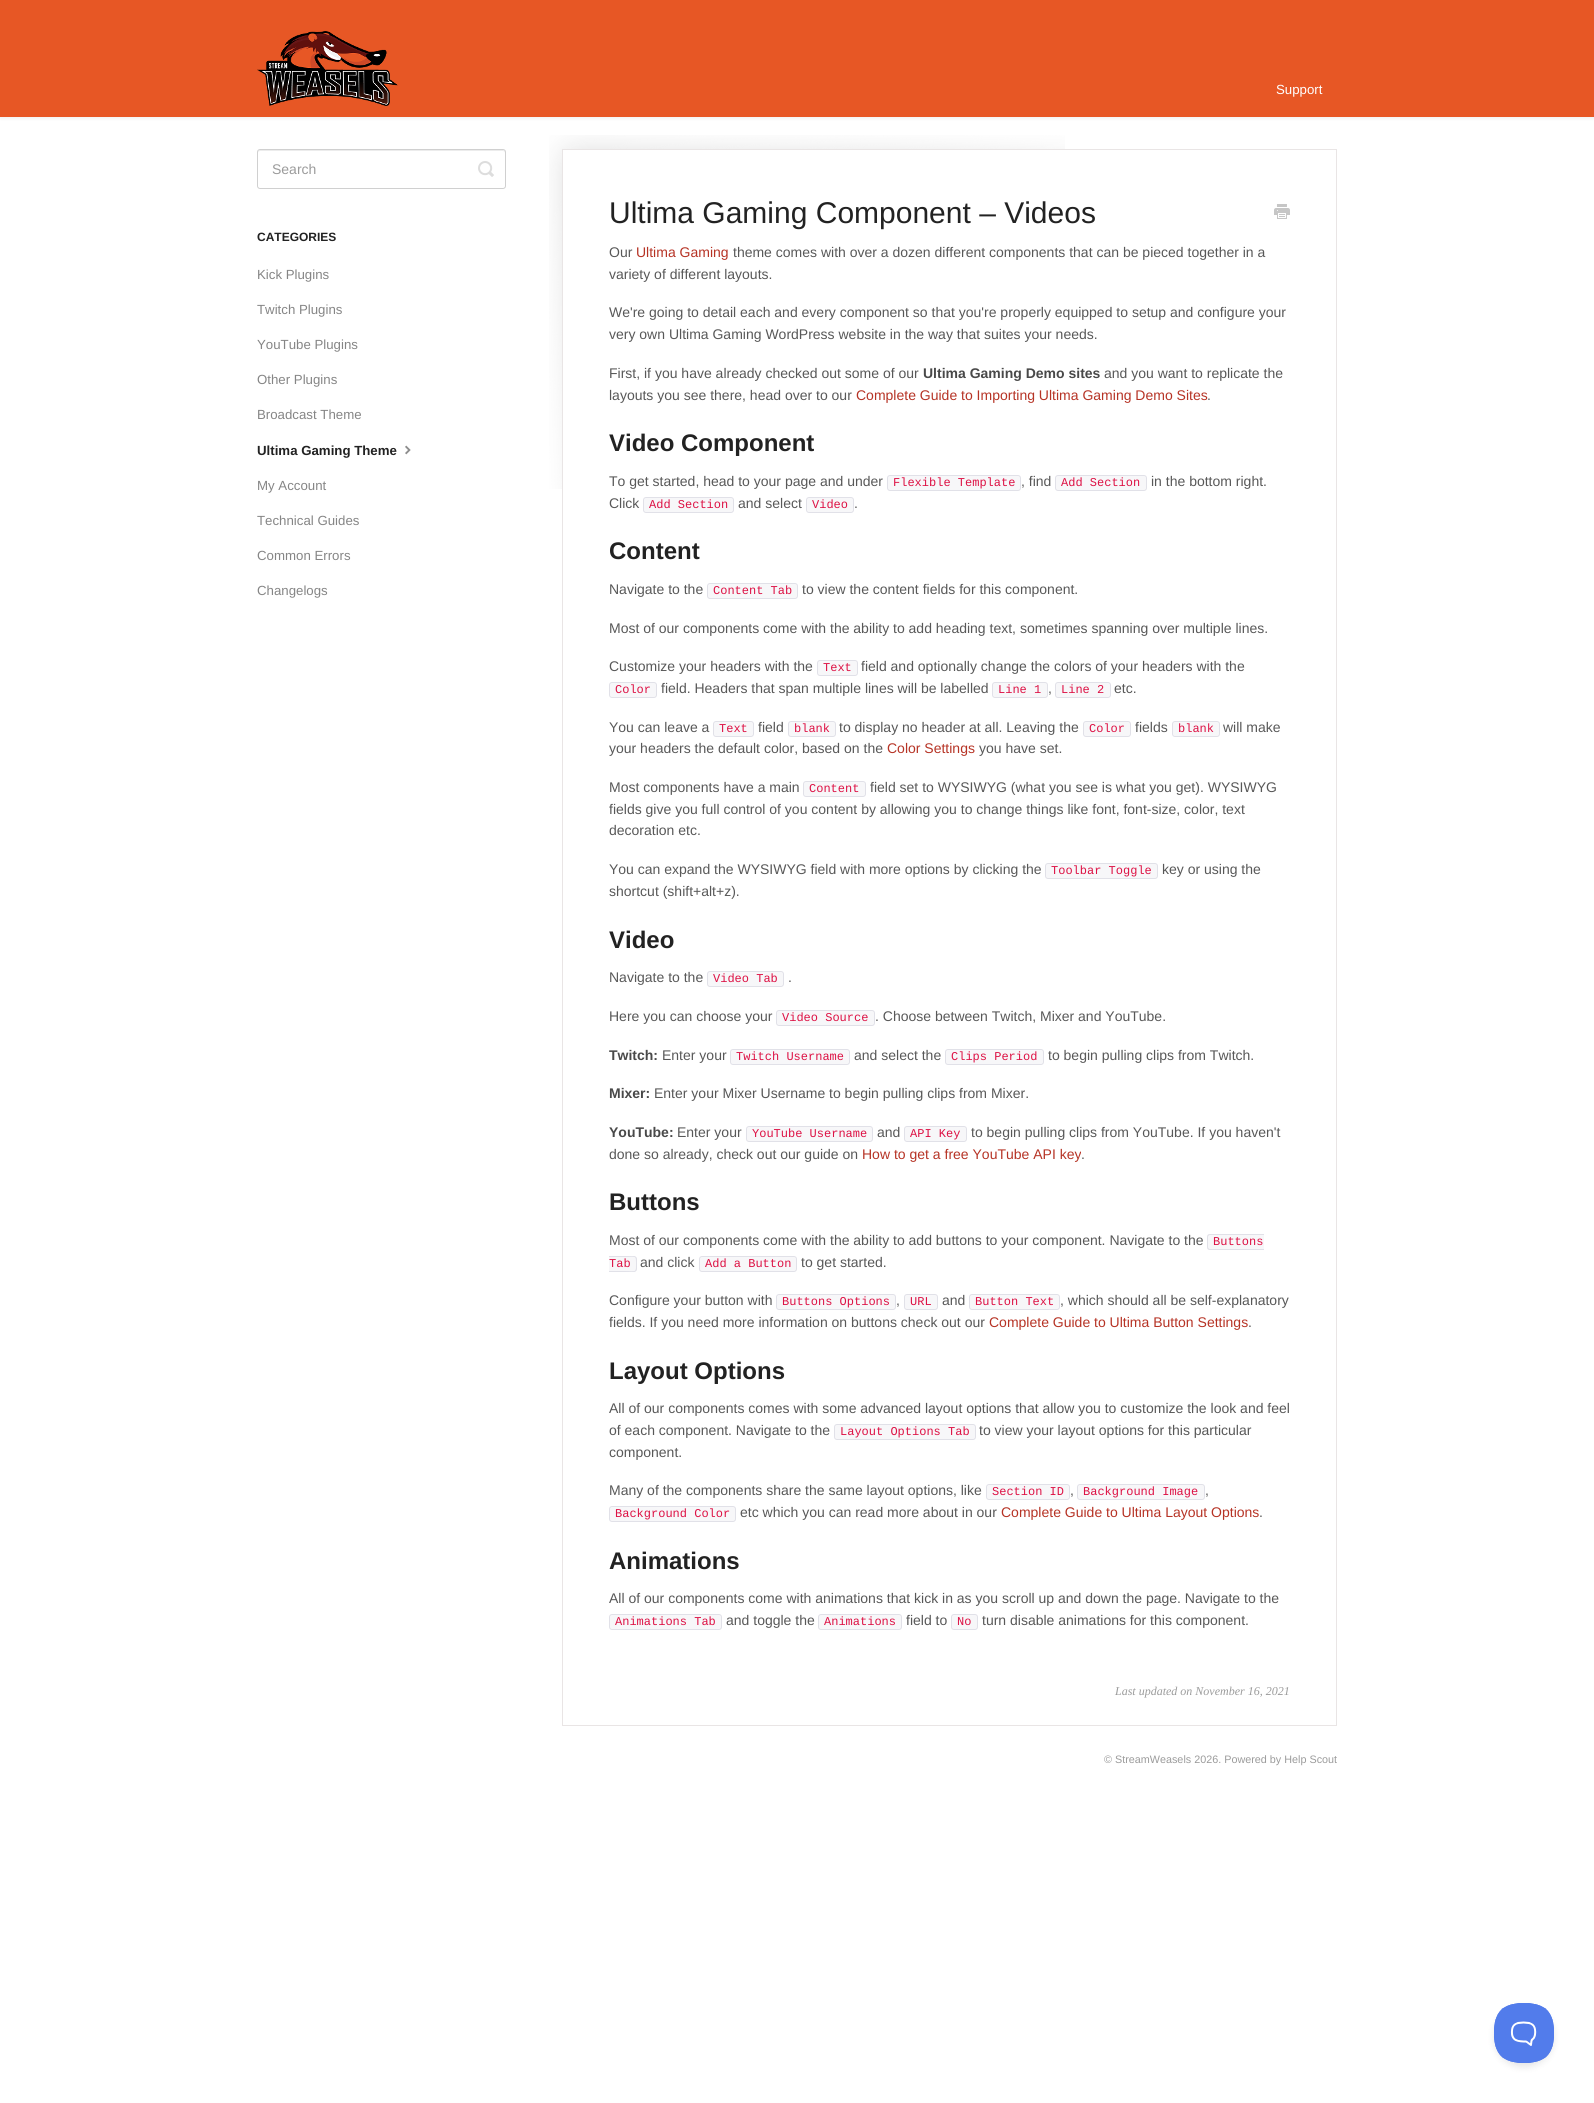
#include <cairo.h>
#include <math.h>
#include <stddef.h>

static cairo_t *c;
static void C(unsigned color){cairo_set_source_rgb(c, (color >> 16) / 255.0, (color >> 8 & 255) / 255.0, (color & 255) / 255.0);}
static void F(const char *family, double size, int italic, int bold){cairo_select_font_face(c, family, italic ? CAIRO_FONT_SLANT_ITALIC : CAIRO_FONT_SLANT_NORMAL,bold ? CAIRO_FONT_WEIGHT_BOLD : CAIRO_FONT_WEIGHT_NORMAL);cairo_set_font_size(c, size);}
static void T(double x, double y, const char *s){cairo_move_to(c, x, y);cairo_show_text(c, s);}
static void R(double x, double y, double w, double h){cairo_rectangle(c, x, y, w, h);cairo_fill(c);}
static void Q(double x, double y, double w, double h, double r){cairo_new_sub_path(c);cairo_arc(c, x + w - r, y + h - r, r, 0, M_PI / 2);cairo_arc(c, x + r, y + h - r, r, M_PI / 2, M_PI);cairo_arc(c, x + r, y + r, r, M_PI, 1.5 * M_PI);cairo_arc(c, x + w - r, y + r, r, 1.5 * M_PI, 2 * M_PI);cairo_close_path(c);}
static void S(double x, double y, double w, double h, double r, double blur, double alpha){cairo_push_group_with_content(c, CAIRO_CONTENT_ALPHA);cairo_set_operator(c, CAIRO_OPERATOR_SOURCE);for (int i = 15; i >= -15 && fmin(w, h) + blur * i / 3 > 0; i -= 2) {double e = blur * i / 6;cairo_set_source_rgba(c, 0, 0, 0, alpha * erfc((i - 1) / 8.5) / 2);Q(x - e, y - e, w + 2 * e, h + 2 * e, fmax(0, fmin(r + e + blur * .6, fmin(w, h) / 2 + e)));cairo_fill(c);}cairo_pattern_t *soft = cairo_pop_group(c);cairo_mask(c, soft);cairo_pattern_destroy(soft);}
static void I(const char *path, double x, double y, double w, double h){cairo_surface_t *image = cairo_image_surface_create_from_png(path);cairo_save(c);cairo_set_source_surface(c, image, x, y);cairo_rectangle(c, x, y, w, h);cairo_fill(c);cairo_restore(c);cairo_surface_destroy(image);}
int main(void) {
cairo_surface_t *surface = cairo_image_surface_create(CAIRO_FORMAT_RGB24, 1594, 2103);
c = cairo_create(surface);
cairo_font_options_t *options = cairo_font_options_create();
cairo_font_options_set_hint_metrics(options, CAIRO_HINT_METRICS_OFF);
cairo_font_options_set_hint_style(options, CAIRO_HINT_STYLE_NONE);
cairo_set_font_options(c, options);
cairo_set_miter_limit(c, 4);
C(0xffffff);
cairo_paint(c);
C(0x000000);
S(0,1,1594,117,0,2,.07);
C(0xe75725);
R(0,0,1594,117);
I("1.png",257,31,141,75);
F("Liberation Sans",13.25,0,0);
C(0xffffff);
T(1276,94,"Support");
C(0xececec);
cairo_new_path(c);
cairo_move_to(c,260,151);
cairo_line_to(c,503,151);
cairo_curve_to(c,504,151,505,152,505,153);
cairo_line_to(c,505,151);
cairo_line_to(c,503,150);
cairo_line_to(c,260,150);
cairo_curve_to(c,258,150,258,152,258,153);
cairo_curve_to(c,258,152,259,151,260,151);
cairo_close_path(c);
cairo_fill(c);
Q(257.5,149.5,248,39,2.5);
C(0xd0d0d0);
cairo_set_line_width(c,1);
cairo_stroke(c);
F("Liberation Sans",14,0,0);
C(0x9b9b9b);
T(272,174,"Search");
I("2.png",478,161,16,16);
F("Liberation Sans",12,0,1);
C(0x222222);
T(257,241,"CATEGORIES");
F("Liberation Sans",13.25,0,0);
C(0x858585);
T(257,279,"Kick Plugins");
T(257,314,"Twitch Plugins");
T(257,349,"YouTube Plugins");
T(257,384,"Other Plugins");
T(257,419,"Broadcast Theme");
F("Liberation Sans",13.25,0,1);
C(0x222222);
T(257,455,"Ultima Gaming Theme");
I("3.png",405,445,6,10);
F("Liberation Sans",13.25,0,0);
C(0x858585);
T(257,490,"My Account");
T(257,525,"Technical Guides");
T(257,560,"Common Errors");
T(257,595,"Changelogs");
I("4.png",549,135,516,354);
cairo_rectangle(c,562.5,149.5,774,1576);
C(0xe9e5e5);
cairo_stroke(c);
F("Liberation Sans",30,0,0);
C(0x222222);
T(609,223,"Ultima Gaming Component – Videos");
I("5.png",1274,204,16,15);
F("Liberation Sans",14,0,0);
C(0x585858);
T(609,257,"Our");
C(0xb63325);
T(636,257,"Ultima Gaming");
C(0x585858);
T(733,257,"theme comes with over a dozen different components that can be pieced together in a");
T(609,279,"variety of different layouts.");
T(609,317,"We're going to detail each and every component so that you're properly equipped to setup and configure your");
T(609,339,"very own Ultima Gaming WordPress website in the way that suites your needs.");
T(609,378,"First, if you have already checked out some of our");
F("Liberation Sans",14,0,1);
C(0x494949);
T(923,378,"Ultima Gaming Demo sites");
F("Liberation Sans",14,0,0);
C(0x585858);
T(1104,378,"and you want to replicate the");
T(609,400,"layouts you see there, head over to our");
C(0xb63325);
T(856,400,"Complete Guide to Importing Ultima Gaming Demo Sites");
C(0x585858);
T(1207,400,".");
F("Liberation Sans",24,0,1);
C(0x222222);
T(609,451,"Video Component");
F("Liberation Sans",14,0,0);
C(0x585858);
T(609,486,"To get started, head to your page and under");
C(0xf7f7f9);
Q(887.5,475.5,133,15,2.5);
cairo_fill_preserve(c);
C(0xe1e1e8);
cairo_stroke(c);
F("Liberation Mono",12,0,0);
C(0xdd1144);
T(893,486,"Flexible Template");
F("Liberation Sans",14,0,0);
C(0x585858);
T(1021,486,", find");
C(0xf7f7f9);
Q(1055.5,475.5,91,15,2.5);
cairo_fill_preserve(c);
C(0xe1e1e8);
cairo_stroke(c);
F("Liberation Mono",12,0,0);
C(0xdd1144);
T(1061,486,"Add Section");
F("Liberation Sans",14,0,0);
C(0x585858);
T(1151,486,"in the bottom right.");
T(609,508,"Click");
C(0xf7f7f9);
Q(643.5,497.5,90,15,2.5);
cairo_fill_preserve(c);
C(0xe1e1e8);
cairo_stroke(c);
F("Liberation Mono",12,0,0);
C(0xdd1144);
T(649,508,"Add Section");
F("Liberation Sans",14,0,0);
C(0x585858);
T(738,508,"and select");
C(0xf7f7f9);
Q(806.5,497.5,47,15,2.5);
cairo_fill_preserve(c);
C(0xe1e1e8);
cairo_stroke(c);
F("Liberation Mono",12,0,0);
C(0xdd1144);
T(812,508,"Video");
F("Liberation Sans",14,0,0);
C(0x585858);
T(854,508,".");
F("Liberation Sans",24,0,1);
C(0x222222);
T(609,559,"Content");
F("Liberation Sans",14,0,0);
C(0x585858);
T(609,594,"Navigate to the");
C(0xf7f7f9);
Q(707.5,583.5,90,15,2.5);
cairo_fill_preserve(c);
C(0xe1e1e8);
cairo_stroke(c);
F("Liberation Mono",12,0,0);
C(0xdd1144);
T(713,594,"Content Tab");
F("Liberation Sans",14,0,0);
C(0x585858);
T(802,594,"to view the content fields for this component.");
T(609,633,"Most of our components come with the ability to add heading text, sometimes spanning over multiple lines.");
T(609,671,"Customize your headers with the");
C(0xf7f7f9);
Q(817.5,660.5,40,15,2.5);
cairo_fill_preserve(c);
C(0xe1e1e8);
cairo_stroke(c);
F("Liberation Mono",12,0,0);
C(0xdd1144);
T(823,671,"Text");
F("Liberation Sans",14,0,0);
C(0x585858);
T(861,671,"field and optionally change the colors of your headers with the");
C(0xf7f7f9);
Q(609.5,682.5,47,15,2.5);
cairo_fill_preserve(c);
C(0xe1e1e8);
cairo_stroke(c);
F("Liberation Mono",12,0,0);
C(0xdd1144);
T(615,693,"Color");
F("Liberation Sans",14,0,0);
C(0x585858);
T(661,693,"field. Headers that span multiple lines will be labelled");
C(0xf7f7f9);
Q(992.5,682.5,55,15,2.5);
cairo_fill_preserve(c);
C(0xe1e1e8);
cairo_stroke(c);
F("Liberation Mono",12,0,0);
C(0xdd1144);
T(998,693,"Line 1");
F("Liberation Sans",14,0,0);
C(0x585858);
T(1048,693,",");
C(0xf7f7f9);
Q(1055.5,682.5,55,15,2.5);
cairo_fill_preserve(c);
C(0xe1e1e8);
cairo_stroke(c);
F("Liberation Mono",12,0,0);
C(0xdd1144);
T(1061,693,"Line 2");
F("Liberation Sans",14,0,0);
C(0x585858);
T(1114,693,"etc.");
T(609,732,"You can leave a");
C(0xf7f7f9);
Q(713.5,721.5,40,15,2.5);
cairo_fill_preserve(c);
C(0xe1e1e8);
cairo_stroke(c);
F("Liberation Mono",12,0,0);
C(0xdd1144);
T(719,732,"Text");
F("Liberation Sans",14,0,0);
C(0x585858);
T(758,732,"field");
C(0xf7f7f9);
Q(788.5,721.5,47,15,2.5);
cairo_fill_preserve(c);
C(0xe1e1e8);
cairo_stroke(c);
F("Liberation Mono",12,0,0);
C(0xdd1144);
T(794,732,"blank");
F("Liberation Sans",14,0,0);
C(0x585858);
T(839,732,"to display no header at all. Leaving the");
C(0xf7f7f9);
Q(1083.5,721.5,47,15,2.5);
cairo_fill_preserve(c);
C(0xe1e1e8);
cairo_stroke(c);
F("Liberation Mono",12,0,0);
C(0xdd1144);
T(1089,732,"Color");
F("Liberation Sans",14,0,0);
C(0x585858);
T(1135,732,"fields");
C(0xf7f7f9);
Q(1172.5,721.5,47,15,2.5);
cairo_fill_preserve(c);
C(0xe1e1e8);
cairo_stroke(c);
F("Liberation Mono",12,0,0);
C(0xdd1144);
T(1178,732,"blank");
F("Liberation Sans",14,0,0);
C(0x585858);
T(1223,732,"will make");
T(609,753,"your headers the default color, based on the");
C(0xb63325);
T(887,753,"Color Settings");
C(0x585858);
T(979,753,"you have set.");
T(609,792,"Most components have a main");
C(0xf7f7f9);
Q(803.5,781.5,62,15,2.5);
cairo_fill_preserve(c);
C(0xe1e1e8);
cairo_stroke(c);
F("Liberation Mono",12,0,0);
C(0xdd1144);
T(809,792,"Content");
F("Liberation Sans",14,0,0);
C(0x585858);
T(870,792,"field set to WYSIWYG (what you see is what you get). WYSIWYG");
T(609,814,"fields give you full control of you content by allowing you to change things like font, font-size, color, text");
T(609,835,"decoration etc.");
T(609,874,"You can expand the WYSIWYG field with more options by clicking the");
C(0xf7f7f9);
Q(1045.5,863.5,112,15,2.5);
cairo_fill_preserve(c);
C(0xe1e1e8);
cairo_stroke(c);
F("Liberation Mono",12,0,0);
C(0xdd1144);
T(1051,874,"Toolbar Toggle");
F("Liberation Sans",14,0,0);
C(0x585858);
T(1162,874,"key or using the");
T(609,896,"shortcut (shift+alt+z).");
F("Liberation Sans",24,0,1);
C(0x222222);
T(609,948,"Video");
F("Liberation Sans",14,0,0);
C(0x585858);
T(609,982,"Navigate to the");
C(0xf7f7f9);
Q(707.5,971.5,76,15,2.5);
cairo_fill_preserve(c);
C(0xe1e1e8);
cairo_stroke(c);
F("Liberation Mono",12,0,0);
C(0xdd1144);
T(713,982,"Video Tab");
F("Liberation Sans",14,0,0);
C(0x585858);
T(788,982,".");
T(609,1021,"Here you can choose your");
C(0xf7f7f9);
Q(776.5,1010.5,98,15,2.5);
cairo_fill_preserve(c);
C(0xe1e1e8);
cairo_stroke(c);
F("Liberation Mono",12,0,0);
C(0xdd1144);
T(782,1021,"Video Source");
F("Liberation Sans",14,0,0);
C(0x585858);
T(875,1021,". Choose between Twitch, Mixer and YouTube.");
F("Liberation Sans",14,0,1);
C(0x494949);
T(609,1060,"Twitch:");
F("Liberation Sans",14,0,0);
C(0x585858);
T(662,1060,"Enter your");
C(0xf7f7f9);
Q(730.5,1049.5,119,15,2.5);
cairo_fill_preserve(c);
C(0xe1e1e8);
cairo_stroke(c);
F("Liberation Mono",12,0,0);
C(0xdd1144);
T(736,1060,"Twitch Username");
F("Liberation Sans",14,0,0);
C(0x585858);
T(854,1060,"and select the");
C(0xf7f7f9);
Q(945.5,1049.5,98,15,2.5);
cairo_fill_preserve(c);
C(0xe1e1e8);
cairo_stroke(c);
F("Liberation Mono",12,0,0);
C(0xdd1144);
T(951,1060,"Clips Period");
F("Liberation Sans",14,0,0);
C(0x585858);
T(1048,1060,"to begin pulling clips from Twitch.");
F("Liberation Sans",14,0,1);
C(0x494949);
T(609,1098,"Mixer:");
F("Liberation Sans",14,0,0);
C(0x585858);
T(654,1098,"Enter your Mixer Username to begin pulling clips from Mixer.");
F("Liberation Sans",14,0,1);
C(0x494949);
T(609,1137,"YouTube:");
F("Liberation Sans",14,0,0);
C(0x585858);
T(677,1137,"Enter your");
C(0xf7f7f9);
Q(746.5,1126.5,126,15,2.5);
cairo_fill_preserve(c);
C(0xe1e1e8);
cairo_stroke(c);
F("Liberation Mono",12,0,0);
C(0xdd1144);
T(752,1137,"YouTube Username");
F("Liberation Sans",14,0,0);
C(0x585858);
T(877,1137,"and");
C(0xf7f7f9);
Q(904.5,1126.5,62,15,2.5);
cairo_fill_preserve(c);
C(0xe1e1e8);
cairo_stroke(c);
F("Liberation Mono",12,0,0);
C(0xdd1144);
T(910,1137,"API Key");
F("Liberation Sans",14,0,0);
C(0x585858);
T(971,1137,"to begin pulling clips from YouTube. If you haven't");
T(609,1159,"done so already, check out our guide on");
C(0xb63325);
T(862,1159,"How to get a free YouTube API key");
C(0x585858);
T(1081,1159,".");
F("Liberation Sans",24,0,1);
C(0x222222);
T(609,1210,"Buttons");
F("Liberation Sans",14,0,0);
C(0x585858);
T(609,1245,"Most of our components come with the ability to add buttons to your component. Navigate to the");
C(0xf7f7f9);
cairo_new_path(c);
cairo_move_to(c,1210,1234);
cairo_line_to(c,1264,1234);
cairo_line_to(c,1264,1250);
cairo_line_to(c,1210,1250);
cairo_curve_to(c,1208.5,1250,1207,1248.5,1207,1247);
cairo_line_to(c,1207,1237);
cairo_curve_to(c,1207,1235.5,1208.5,1234,1210,1234);
cairo_close_path(c);
cairo_fill(c);
C(0xe1e1e8);
cairo_set_fill_rule(c,CAIRO_FILL_RULE_EVEN_ODD);
cairo_new_path(c);
cairo_move_to(c,1210,1234);
cairo_line_to(c,1264,1234);
cairo_line_to(c,1264,1250);
cairo_line_to(c,1210,1250);
cairo_curve_to(c,1208,1250,1207,1249,1207,1247);
cairo_line_to(c,1207,1237);
cairo_curve_to(c,1207,1235,1208,1234,1210,1234);
cairo_close_path(c);
cairo_move_to(c,1210,1235);
cairo_line_to(c,1264,1235);
cairo_line_to(c,1264,1249);
cairo_line_to(c,1210,1249);
cairo_curve_to(c,1209,1249,1208,1248,1208,1247);
cairo_line_to(c,1208,1237);
cairo_curve_to(c,1208,1236,1209,1235,1210,1235);
cairo_close_path(c);
cairo_fill(c);
F("Liberation Mono",12,0,0);
C(0xdd1144);
T(1213,1245,"Buttons");
C(0xf7f7f9);
cairo_new_path(c);
cairo_move_to(c,609,1256);
cairo_line_to(c,634,1256);
cairo_curve_to(c,635.5,1256,637,1257.5,637,1259);
cairo_line_to(c,637,1269);
cairo_curve_to(c,637,1270.5,635.5,1272,634,1272);
cairo_line_to(c,609,1272);
cairo_close_path(c);
cairo_fill(c);
C(0xe1e1e8);
cairo_new_path(c);
cairo_move_to(c,609,1256);
cairo_line_to(c,634,1256);
cairo_curve_to(c,635.5,1256,637,1257.5,637,1259);
cairo_line_to(c,637,1269);
cairo_curve_to(c,637,1270.5,635.5,1272,634,1272);
cairo_line_to(c,609,1272);
cairo_close_path(c);
cairo_move_to(c,609,1257);
cairo_line_to(c,625.5,1257);
cairo_curve_to(c,636,1257,636,1255,636,1264);
cairo_curve_to(c,636,1273,636,1271,625.5,1271);
cairo_line_to(c,609,1271);
cairo_close_path(c);
cairo_fill(c);
C(0xdd1144);
T(609,1267,"Tab");
F("Liberation Sans",14,0,0);
C(0x585858);
T(640,1267,"and click");
C(0xf7f7f9);
Q(699.5,1256.5,97,15,2.5);
cairo_fill_preserve(c);
C(0xe1e1e8);
cairo_stroke(c);
F("Liberation Mono",12,0,0);
C(0xdd1144);
T(705,1267,"Add a Button");
F("Liberation Sans",14,0,0);
C(0x585858);
T(801,1267,"to get started.");
T(609,1305,"Configure your button with");
C(0xf7f7f9);
Q(776.5,1294.5,119,15,2.5);
cairo_fill_preserve(c);
C(0xe1e1e8);
cairo_stroke(c);
F("Liberation Mono",12,0,0);
C(0xdd1144);
T(782,1305,"Buttons Options");
F("Liberation Sans",14,0,0);
C(0x585858);
T(896,1305,",");
C(0xf7f7f9);
Q(904.5,1294.5,33,15,2.5);
cairo_fill_preserve(c);
C(0xe1e1e8);
cairo_stroke(c);
F("Liberation Mono",12,0,0);
C(0xdd1144);
T(910,1305,"URL");
F("Liberation Sans",14,0,0);
C(0x585858);
T(942,1305,"and");
C(0xf7f7f9);
Q(969.5,1294.5,90,15,2.5);
cairo_fill_preserve(c);
C(0xe1e1e8);
cairo_stroke(c);
F("Liberation Mono",12,0,0);
C(0xdd1144);
T(975,1305,"Button Text");
F("Liberation Sans",14,0,0);
C(0x585858);
T(1060,1305,", which should all be self-explanatory");
T(609,1327,"fields. If you need more information on buttons check out our");
C(0xb63325);
T(989,1327,"Complete Guide to Ultima Button Settings");
C(0x585858);
T(1248,1327,".");
F("Liberation Sans",24,0,1);
C(0x222222);
T(609,1379,"Layout Options");
F("Liberation Sans",14,0,0);
C(0x585858);
T(609,1413,"All of our components comes with some advanced layout options that allow you to customize the look and feel");
T(609,1435,"of each component. Navigate to the");
C(0xf7f7f9);
Q(834.5,1424.5,141,15,2.5);
cairo_fill_preserve(c);
C(0xe1e1e8);
cairo_stroke(c);
F("Liberation Mono",12,0,0);
C(0xdd1144);
T(840,1435,"Layout Options Tab");
F("Liberation Sans",14,0,0);
C(0x585858);
T(979,1435,"to view your layout options for this particular");
T(609,1457,"component.");
T(609,1495,"Many of the components share the same layout options, like");
C(0xf7f7f9);
Q(986.5,1484.5,83,15,2.5);
cairo_fill_preserve(c);
C(0xe1e1e8);
cairo_stroke(c);
F("Liberation Mono",12,0,0);
C(0xdd1144);
T(992,1495,"Section ID");
F("Liberation Sans",14,0,0);
C(0x585858);
T(1070,1495,",");
C(0xf7f7f9);
Q(1077.5,1484.5,127,15,2.5);
cairo_fill_preserve(c);
C(0xe1e1e8);
cairo_stroke(c);
F("Liberation Mono",12,0,0);
C(0xdd1144);
T(1083,1495,"Background Image");
F("Liberation Sans",14,0,0);
C(0x585858);
T(1205,1495,",");
C(0xf7f7f9);
Q(609.5,1506.5,126,15,2.5);
cairo_fill_preserve(c);
C(0xe1e1e8);
cairo_stroke(c);
F("Liberation Mono",12,0,0);
C(0xdd1144);
T(615,1517,"Background Color");
F("Liberation Sans",14,0,0);
C(0x585858);
T(740,1517,"etc which you can read more about in our");
C(0xb63325);
T(1001,1517,"Complete Guide to Ultima Layout Options");
C(0x585858);
T(1259,1517,".");
F("Liberation Sans",24,0,1);
C(0x222222);
T(609,1569,"Animations");
F("Liberation Sans",14,0,0);
C(0x585858);
T(609,1603,"All of our components come with animations that kick in as you scroll up and down the page. Navigate to the");
C(0xf7f7f9);
Q(609.5,1614.5,112,15,2.5);
cairo_fill_preserve(c);
C(0xe1e1e8);
cairo_stroke(c);
F("Liberation Mono",12,0,0);
C(0xdd1144);
T(615,1625,"Animations Tab");
F("Liberation Sans",14,0,0);
C(0x585858);
T(726,1625,"and toggle the");
C(0xf7f7f9);
Q(818.5,1614.5,83,15,2.5);
cairo_fill_preserve(c);
C(0xe1e1e8);
cairo_stroke(c);
F("Liberation Mono",12,0,0);
C(0xdd1144);
T(824,1625,"Animations");
F("Liberation Sans",14,0,0);
C(0x585858);
T(906,1625,"field to");
C(0xf7f7f9);
Q(951.5,1614.5,26,15,2.5);
cairo_fill_preserve(c);
C(0xe1e1e8);
cairo_stroke(c);
F("Liberation Mono",12,0,0);
C(0xdd1144);
T(957,1625,"No");
F("Liberation Sans",14,0,0);
C(0x585858);
T(982,1625,"turn disable animations for this component.");
F("Liberation Serif",12,1,0);
C(0x9b9b9b);
T(1115,1695,"Last updated on November 16, 2021");
F("Liberation Sans",10.8,0,0);
T(1104,1763,"© StreamWeasels 2026. Powered by Help Scout");
C(0x000000);
S(1494,2007,60,60,30,3.5,.1);
I("6.png",1494,2003,60,60);
cairo_surface_write_to_png(surface, "o.png");
cairo_font_options_destroy(options);
cairo_destroy(c);
cairo_surface_destroy(surface);
return 0;
}
